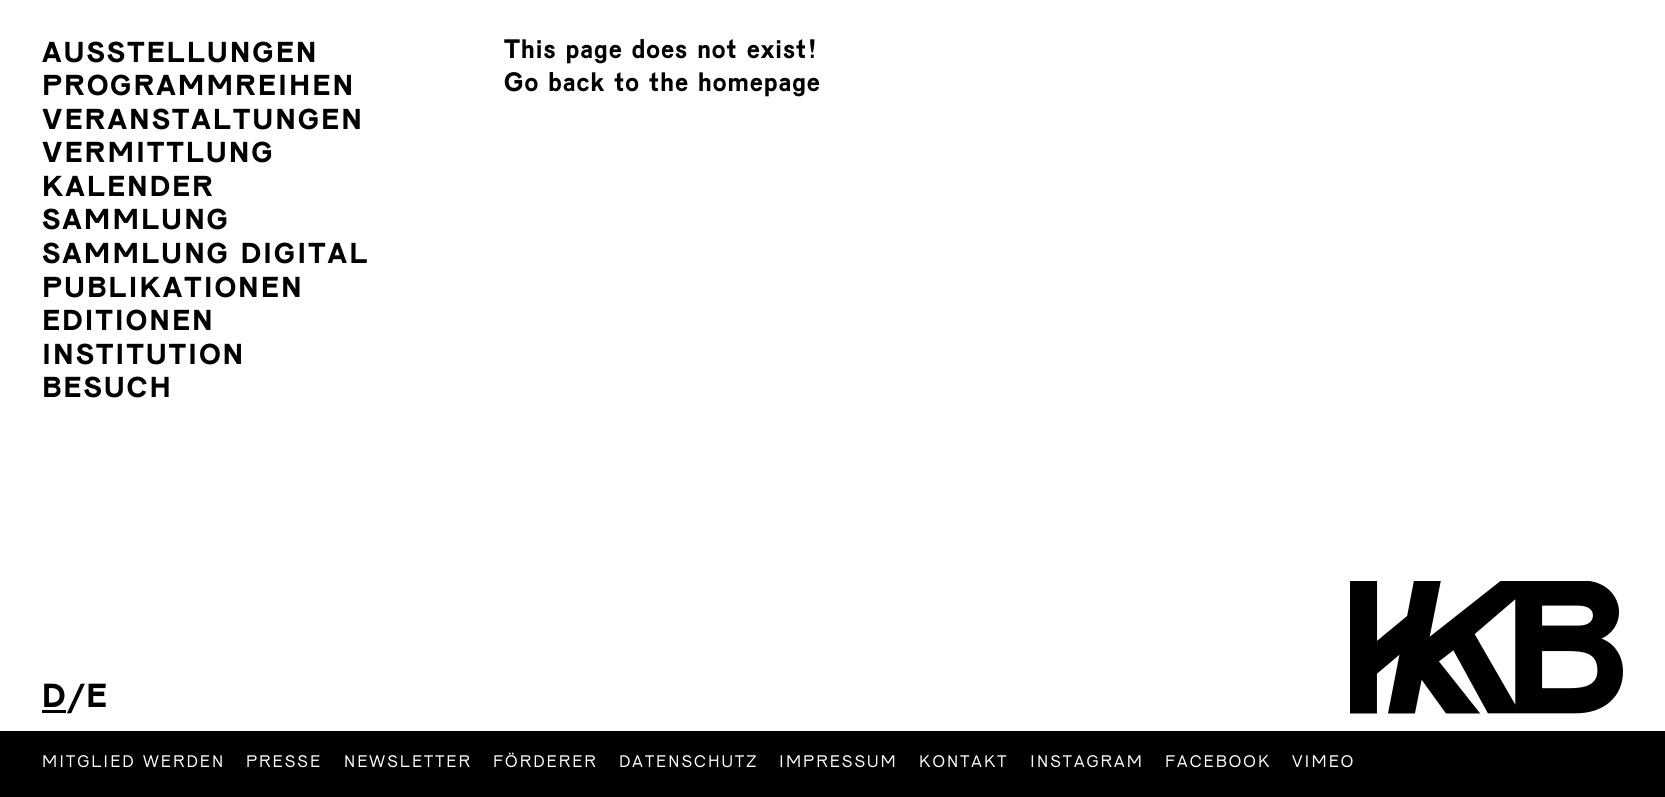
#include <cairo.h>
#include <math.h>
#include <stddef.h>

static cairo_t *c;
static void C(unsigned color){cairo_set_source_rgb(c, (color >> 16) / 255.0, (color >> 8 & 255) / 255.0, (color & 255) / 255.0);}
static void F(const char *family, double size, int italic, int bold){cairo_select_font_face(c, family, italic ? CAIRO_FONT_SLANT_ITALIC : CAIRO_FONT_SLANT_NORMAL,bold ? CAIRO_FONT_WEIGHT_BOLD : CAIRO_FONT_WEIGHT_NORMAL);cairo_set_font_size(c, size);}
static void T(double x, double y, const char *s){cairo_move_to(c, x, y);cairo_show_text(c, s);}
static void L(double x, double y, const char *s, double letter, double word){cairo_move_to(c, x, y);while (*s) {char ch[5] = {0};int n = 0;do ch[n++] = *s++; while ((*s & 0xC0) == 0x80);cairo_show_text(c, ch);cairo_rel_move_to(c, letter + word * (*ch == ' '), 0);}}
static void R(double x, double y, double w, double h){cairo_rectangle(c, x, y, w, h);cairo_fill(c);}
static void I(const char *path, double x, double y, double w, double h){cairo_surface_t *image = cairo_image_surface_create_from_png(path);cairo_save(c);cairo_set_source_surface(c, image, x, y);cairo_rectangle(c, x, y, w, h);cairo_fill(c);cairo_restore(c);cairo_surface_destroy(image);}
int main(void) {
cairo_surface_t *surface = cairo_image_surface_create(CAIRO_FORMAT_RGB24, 1665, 797);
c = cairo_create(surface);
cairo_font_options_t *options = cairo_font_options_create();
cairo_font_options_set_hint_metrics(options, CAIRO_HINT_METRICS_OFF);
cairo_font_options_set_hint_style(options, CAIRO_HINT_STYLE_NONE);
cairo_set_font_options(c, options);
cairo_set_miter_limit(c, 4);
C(0xffffff);
cairo_paint(c);
F("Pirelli",25.25,0,1);
C(0x000000);
L(504,58,"This page does not exist!",1.05,0);
L(504,91,"Go back to the homepage",1.05,0);
R(42,710,24,3);
F("Pirelli",31.5,0,1);
T(42,707,"D/E");
F("Pirelli",27.25,0,1);
L(42,62,"AUSSTELLUNGEN",2.1,0);
L(42,95,"PROGRAMMREIHEN",2.1,0);
L(42,129,"VERANSTALTUNGEN",2.1,0);
L(42,162,"VERMITTLUNG",2.1,0);
L(42,196,"KALENDER",2.1,0);
L(42,229,"SAMMLUNG",2.1,0);
L(42,263,"SAMMLUNG DIGITAL",2.1,0);
L(42,297,"PUBLIKATIONEN",2.1,0);
L(42,330,"EDITIONEN",2.1,0);
L(42,364,"INSTITUTION",2.1,0);
L(42,397,"BESUCH",2.1,0);
I("1.png",1350,581,273,133);
R(0,731,1665,66);
F("Pirelli",16.75,0,0);
C(0xffffff);
L(42,767,"MITGLIED WERDEN",2.1,0);
L(246,767,"PRESSE",2.1,0);
L(344,767,"NEWSLETTER",2.1,0);
L(493,767,"FÖRDERER",2.1,0);
L(619,767,"DATENSCHUTZ",2.1,0);
L(779,767,"IMPRESSUM",2.1,0);
L(919,767,"KONTAKT",2.1,0);
L(1030,767,"INSTAGRAM",2.1,0);
L(1165,767,"FACEBOOK",2.1,0);
L(1292,767,"VIMEO",2.1,0);
cairo_surface_write_to_png(surface, "o.png");
cairo_font_options_destroy(options);
cairo_destroy(c);
cairo_surface_destroy(surface);
return 0;
}
